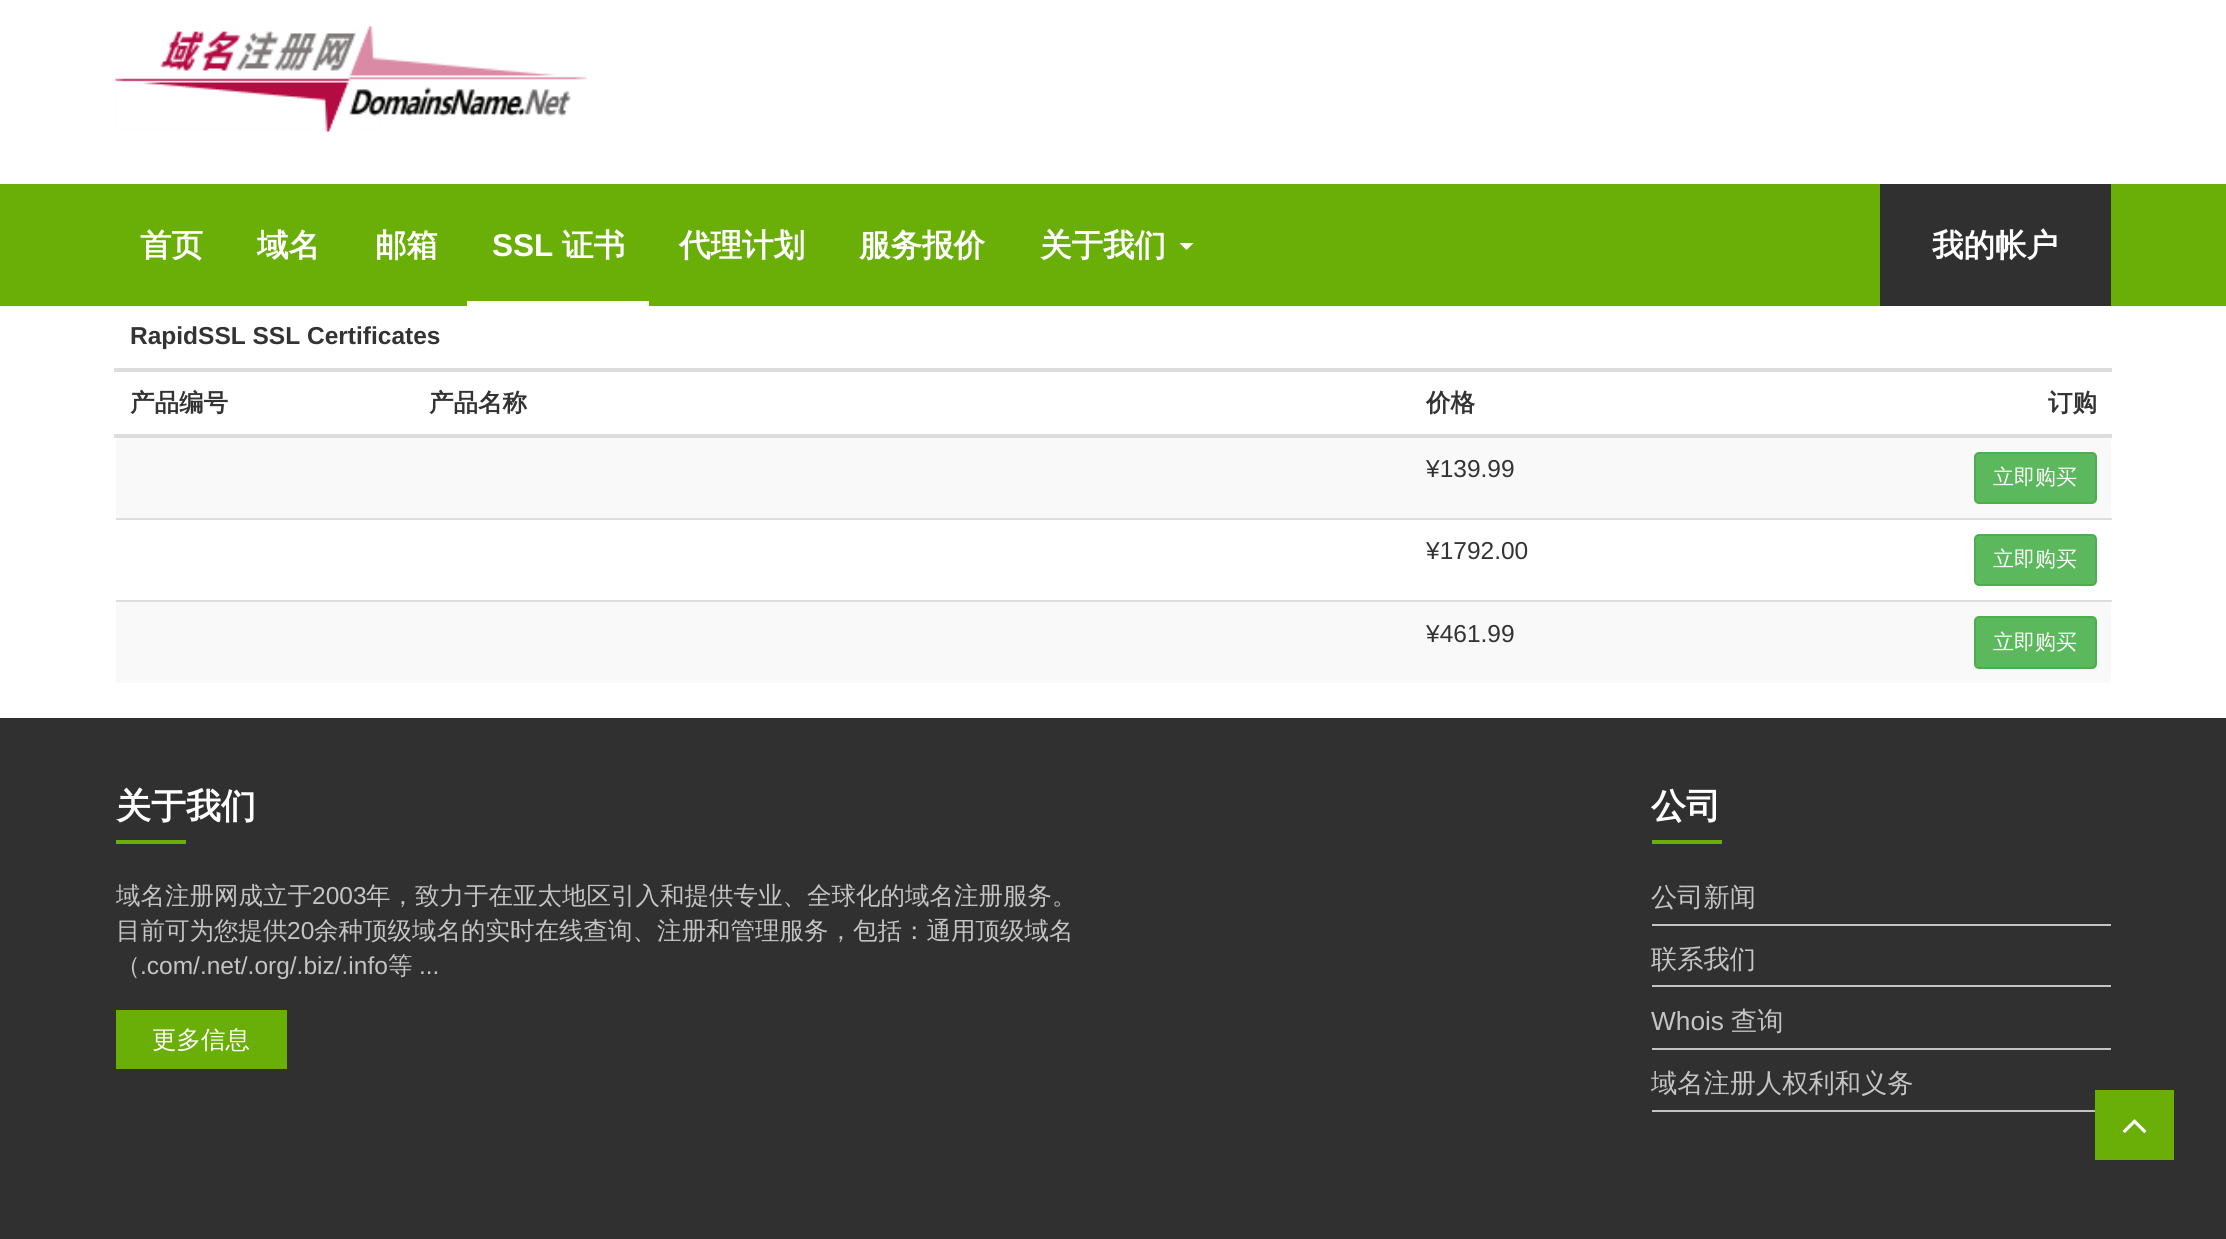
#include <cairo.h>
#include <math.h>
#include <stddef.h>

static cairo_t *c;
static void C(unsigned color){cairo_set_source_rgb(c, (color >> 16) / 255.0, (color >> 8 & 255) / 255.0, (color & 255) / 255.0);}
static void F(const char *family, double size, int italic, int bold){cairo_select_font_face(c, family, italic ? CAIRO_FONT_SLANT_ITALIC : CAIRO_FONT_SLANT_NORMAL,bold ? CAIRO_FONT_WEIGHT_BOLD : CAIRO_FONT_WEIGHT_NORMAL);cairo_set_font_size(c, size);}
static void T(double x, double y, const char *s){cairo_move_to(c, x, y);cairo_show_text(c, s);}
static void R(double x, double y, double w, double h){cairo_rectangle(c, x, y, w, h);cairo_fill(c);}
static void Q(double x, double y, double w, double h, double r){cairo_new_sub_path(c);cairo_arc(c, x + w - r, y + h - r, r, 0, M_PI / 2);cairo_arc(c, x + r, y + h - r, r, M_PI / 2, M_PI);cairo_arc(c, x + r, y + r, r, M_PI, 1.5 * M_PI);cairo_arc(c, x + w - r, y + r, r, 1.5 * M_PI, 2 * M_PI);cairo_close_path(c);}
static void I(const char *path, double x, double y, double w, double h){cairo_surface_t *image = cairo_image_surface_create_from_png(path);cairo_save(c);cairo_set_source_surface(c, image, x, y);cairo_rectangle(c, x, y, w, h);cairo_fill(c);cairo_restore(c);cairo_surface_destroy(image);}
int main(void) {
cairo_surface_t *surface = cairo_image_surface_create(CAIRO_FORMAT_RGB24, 2226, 1239);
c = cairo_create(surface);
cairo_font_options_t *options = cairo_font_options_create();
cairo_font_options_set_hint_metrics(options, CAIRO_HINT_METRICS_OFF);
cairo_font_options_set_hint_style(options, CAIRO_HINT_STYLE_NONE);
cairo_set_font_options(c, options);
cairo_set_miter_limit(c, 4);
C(0xffffff);
cairo_paint(c);
I("1.png",115,26,472,106);
C(0x6aaf08);
R(0,184,2226,122);
F("WenQuanYi Zen Hei",31.5,0,1);
C(0xffffff);
T(140,256,"首页");
T(257,256,"域名");
T(375,256,"邮箱");
R(467,301,182,5);
F("Liberation Sans",31.5,0,1);
T(492,256,"SSL");
F("WenQuanYi Zen Hei",31.5,0,1);
T(562,256,"证书");
T(679,256,"代理计划");
T(859,256,"服务报价");
T(1040,256,"关于我们");
cairo_new_path(c);
cairo_move_to(c,1179.5,243);
cairo_line_to(c,1193.5,243);
cairo_line_to(c,1186.5,250);
cairo_close_path(c);
cairo_fill(c);
C(0x303030);
R(1880,184,231,122);
C(0xffffff);
T(1932,256,"我的帐户");
C(0xdddddd);
R(114,368,1998,4);
F("Liberation Sans",24.5,0,1);
C(0x333333);
T(130,344,"RapidSSL SSL Certificates");
F("WenQuanYi Zen Hei",24.5,0,1);
T(130,411,"产品编号");
T(429,411,"产品名称");
T(1426,411,"价格");
C(0xdddddd);
R(114,434,1998,4);
C(0x333333);
T(2048,411,"订购");
C(0xf9f9f9);
R(116,438,1995,80);
F("Liberation Sans",24.5,0,0);
C(0x333333);
T(1426,477,"¥139.99");
C(0x5cb85c);
Q(1975,453,121,50,4);
cairo_fill_preserve(c);
C(0x4cae4c);
cairo_stroke(c);
F("WenQuanYi Zen Hei Medium",21,0,0);
C(0xffffff);
T(1993,484,"立即购买");
F("Liberation Sans",24.5,0,0);
C(0x333333);
T(1426,559,"¥1792.00");
C(0xdddddd);
R(116,518,1996,2);
C(0x5cb85c);
Q(1975,535,121,50,4);
cairo_fill_preserve(c);
C(0x4cae4c);
cairo_stroke(c);
F("WenQuanYi Zen Hei Medium",21,0,0);
C(0xffffff);
T(1993,566,"立即购买");
C(0xf9f9f9);
R(116,602,1995,81);
F("Liberation Sans",24.5,0,0);
C(0x333333);
T(1426,642,"¥461.99");
C(0xdddddd);
R(116,600,1996,2);
C(0x5cb85c);
Q(1975,617,121,51,4);
cairo_fill_preserve(c);
C(0x4cae4c);
cairo_stroke(c);
F("WenQuanYi Zen Hei Medium",21,0,0);
C(0xffffff);
T(1993,649,"立即购买");
C(0x303030);
R(0,718,2226,521);
F("WenQuanYi Zen Hei",35,0,1);
C(0xffffff);
T(116,818,"关于我们");
C(0x6aaf08);
R(116,840,70,4);
F("WenQuanYi Zen Hei Medium",24.5,0,0);
C(0xc4c4c4);
T(116,904,"域名注册网成立于");
F("Liberation Sans",24.5,0,0);
T(312,904,"2003");
F("WenQuanYi Zen Hei Medium",24.5,0,0);
T(366,904,"年，致力于在亚太地区引入和提供专业、全球化的域名注册服务。");
T(116,939,"目前可为您提供");
F("Liberation Sans",24.5,0,0);
T(287,939,"20");
F("WenQuanYi Zen Hei Medium",24.5,0,0);
T(314,939,"余种顶级域名的实时在线查询、注册和管理服务，包括：通用顶级域名");
T(116,974,"（");
F("Liberation Sans",24.5,0,0);
T(140,974,".com/.net/.org/.biz/.info");
F("WenQuanYi Zen Hei Medium",24.5,0,0);
T(388,974,"等");
F("Liberation Sans",24.5,0,0);
T(419,974,"...");
C(0x6aaf08);
R(116,1010,171,59);
F("WenQuanYi Zen Hei Medium",24.5,0,0);
C(0xffffff);
T(152,1048,"更多信息");
F("WenQuanYi Zen Hei",35,0,1);
T(1651,818,"公司");
C(0x6aaf08);
R(1652,840,70,4);
C(0xc4c4c4);
R(1652,924,459,2);
F("WenQuanYi Zen Hei Medium",26.25,0,0);
T(1651,906,"公司新闻");
R(1652,985,459,2);
T(1651,968,"联系我们");
R(1652,1048,459,2);
F("Liberation Sans",26.25,0,0);
T(1651,1030,"Whois");
F("WenQuanYi Zen Hei Medium",26.25,0,0);
T(1731,1030,"查询");
R(1652,1110,443,2);
T(1651,1092,"域名注册人权利和义务");
C(0x6aaf08);
R(2095,1090,79,70);
I("2.png",2122,1119,25,14);
cairo_surface_write_to_png(surface, "o.png");
cairo_font_options_destroy(options);
cairo_destroy(c);
cairo_surface_destroy(surface);
return 0;
}
